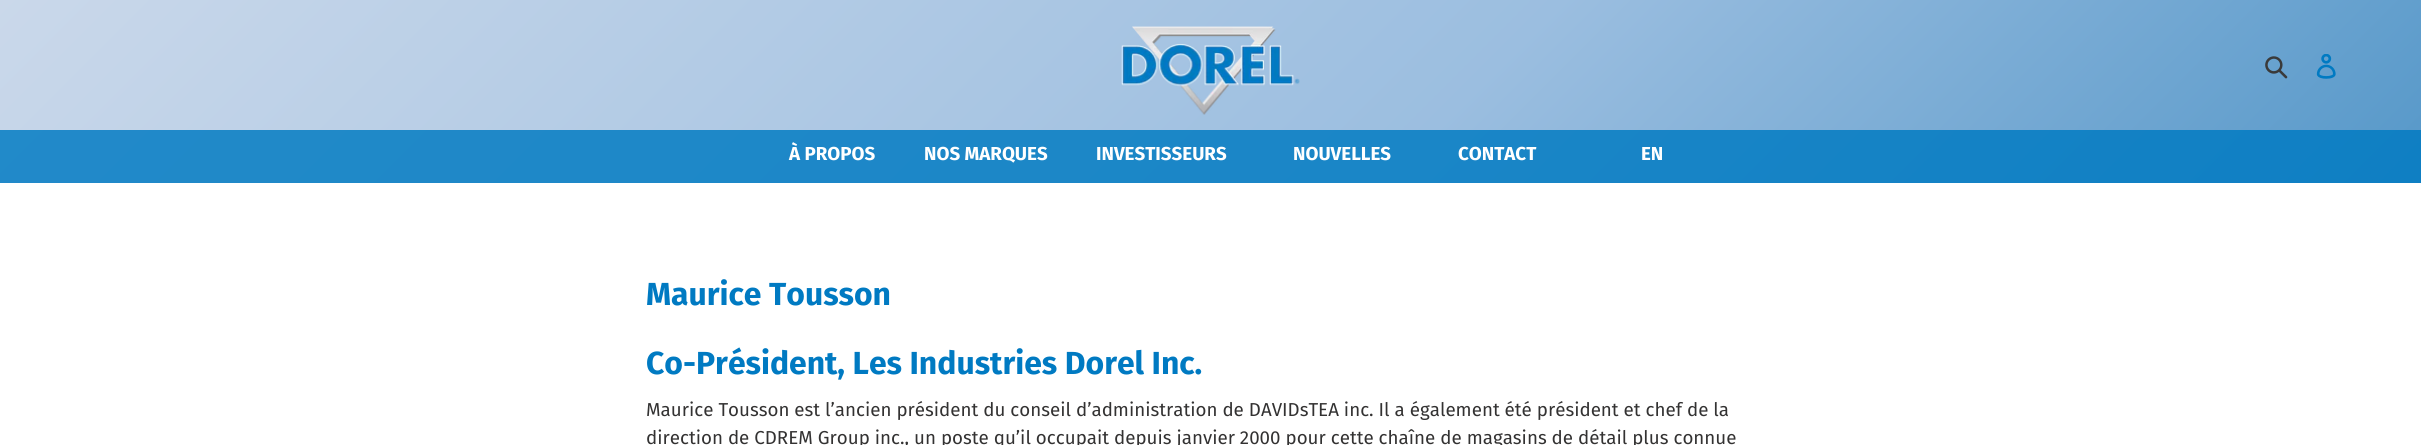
#include <cairo.h>
#include <math.h>
#include <stddef.h>

static cairo_t *c;
static void C(unsigned color){cairo_set_source_rgb(c, (color >> 16) / 255.0, (color >> 8 & 255) / 255.0, (color & 255) / 255.0);}
static void F(const char *family, double size, int italic, int bold){cairo_select_font_face(c, family, italic ? CAIRO_FONT_SLANT_ITALIC : CAIRO_FONT_SLANT_NORMAL,bold ? CAIRO_FONT_WEIGHT_BOLD : CAIRO_FONT_WEIGHT_NORMAL);cairo_set_font_size(c, size);}
static void T(double x, double y, const char *s){cairo_move_to(c, x, y);cairo_show_text(c, s);}
static void R(double x, double y, double w, double h){cairo_rectangle(c, x, y, w, h);cairo_fill(c);}
static void I(const char *path, double x, double y, double w, double h){cairo_surface_t *image = cairo_image_surface_create_from_png(path);cairo_save(c);cairo_set_source_surface(c, image, x, y);cairo_rectangle(c, x, y, w, h);cairo_fill(c);cairo_restore(c);cairo_surface_destroy(image);}
int main(void) {
cairo_surface_t *surface = cairo_image_surface_create(CAIRO_FORMAT_RGB24, 2421, 445);
c = cairo_create(surface);
cairo_font_options_t *options = cairo_font_options_create();
cairo_font_options_set_hint_metrics(options, CAIRO_HINT_METRICS_OFF);
cairo_font_options_set_hint_style(options, CAIRO_HINT_STYLE_NONE);
cairo_set_font_options(c, options);
cairo_set_miter_limit(c, 4);
cairo_pattern_t *gradient;
C(0xffffff);
cairo_paint(c);
gradient = cairo_pattern_create_linear(560,-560,1862,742);
cairo_pattern_add_color_stop_rgba(gradient,0,0.792,0.847,0.918,1);
cairo_pattern_add_color_stop_rgba(gradient,.6,0.608,0.745,0.878,1);
cairo_pattern_add_color_stop_rgba(gradient,1,0.337,0.596,0.788,1);
cairo_set_source(c,gradient);
cairo_pattern_destroy(gradient);
R(0,0,2421,130);
gradient = cairo_pattern_create_linear(560,-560,1862,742);
cairo_pattern_add_color_stop_rgba(gradient,0,0.133,0.541,0.788,1);
cairo_pattern_add_color_stop_rgba(gradient,.6,0.102,0.525,0.78,1);
cairo_pattern_add_color_stop_rgba(gradient,1,0.059,0.498,0.765,1);
cairo_set_source(c,gradient);
cairo_pattern_destroy(gradient);
R(0,130,2421,53);
I("1.png",1121,26,179,89);
I("2.png",2265,56,23,23);
I("3.png",2316,54,20,25);
F("Fira Sans",18.75,0,1);
C(0xffffff);
T(789,160,"À PROPOS");
T(924,160,"NOS MARQUES");
T(1096,160,"INVESTISSEURS");
T(1293,160,"NOUVELLES");
T(1458,160,"CONTACT");
T(1641,160,"EN");
F("Fira Sans",31.9,0,1);
C(0x007ac2);
T(646,305,"Maurice Tousson");
T(646,374,"Co-Président, Les Industries Dorel Inc.");
F("Fira Sans",18.75,0,0);
C(0x333232);
T(646,416,"Maurice Tousson est l’ancien président du conseil d’administration de DAVIDsTEA inc. Il a également été président et chef de la");
T(646,444,"direction de CDREM Group inc., un poste qu’il occupait depuis janvier 2000 pour cette chaîne de magasins de détail plus connue");
cairo_surface_write_to_png(surface, "o.png");
cairo_font_options_destroy(options);
cairo_destroy(c);
cairo_surface_destroy(surface);
return 0;
}
